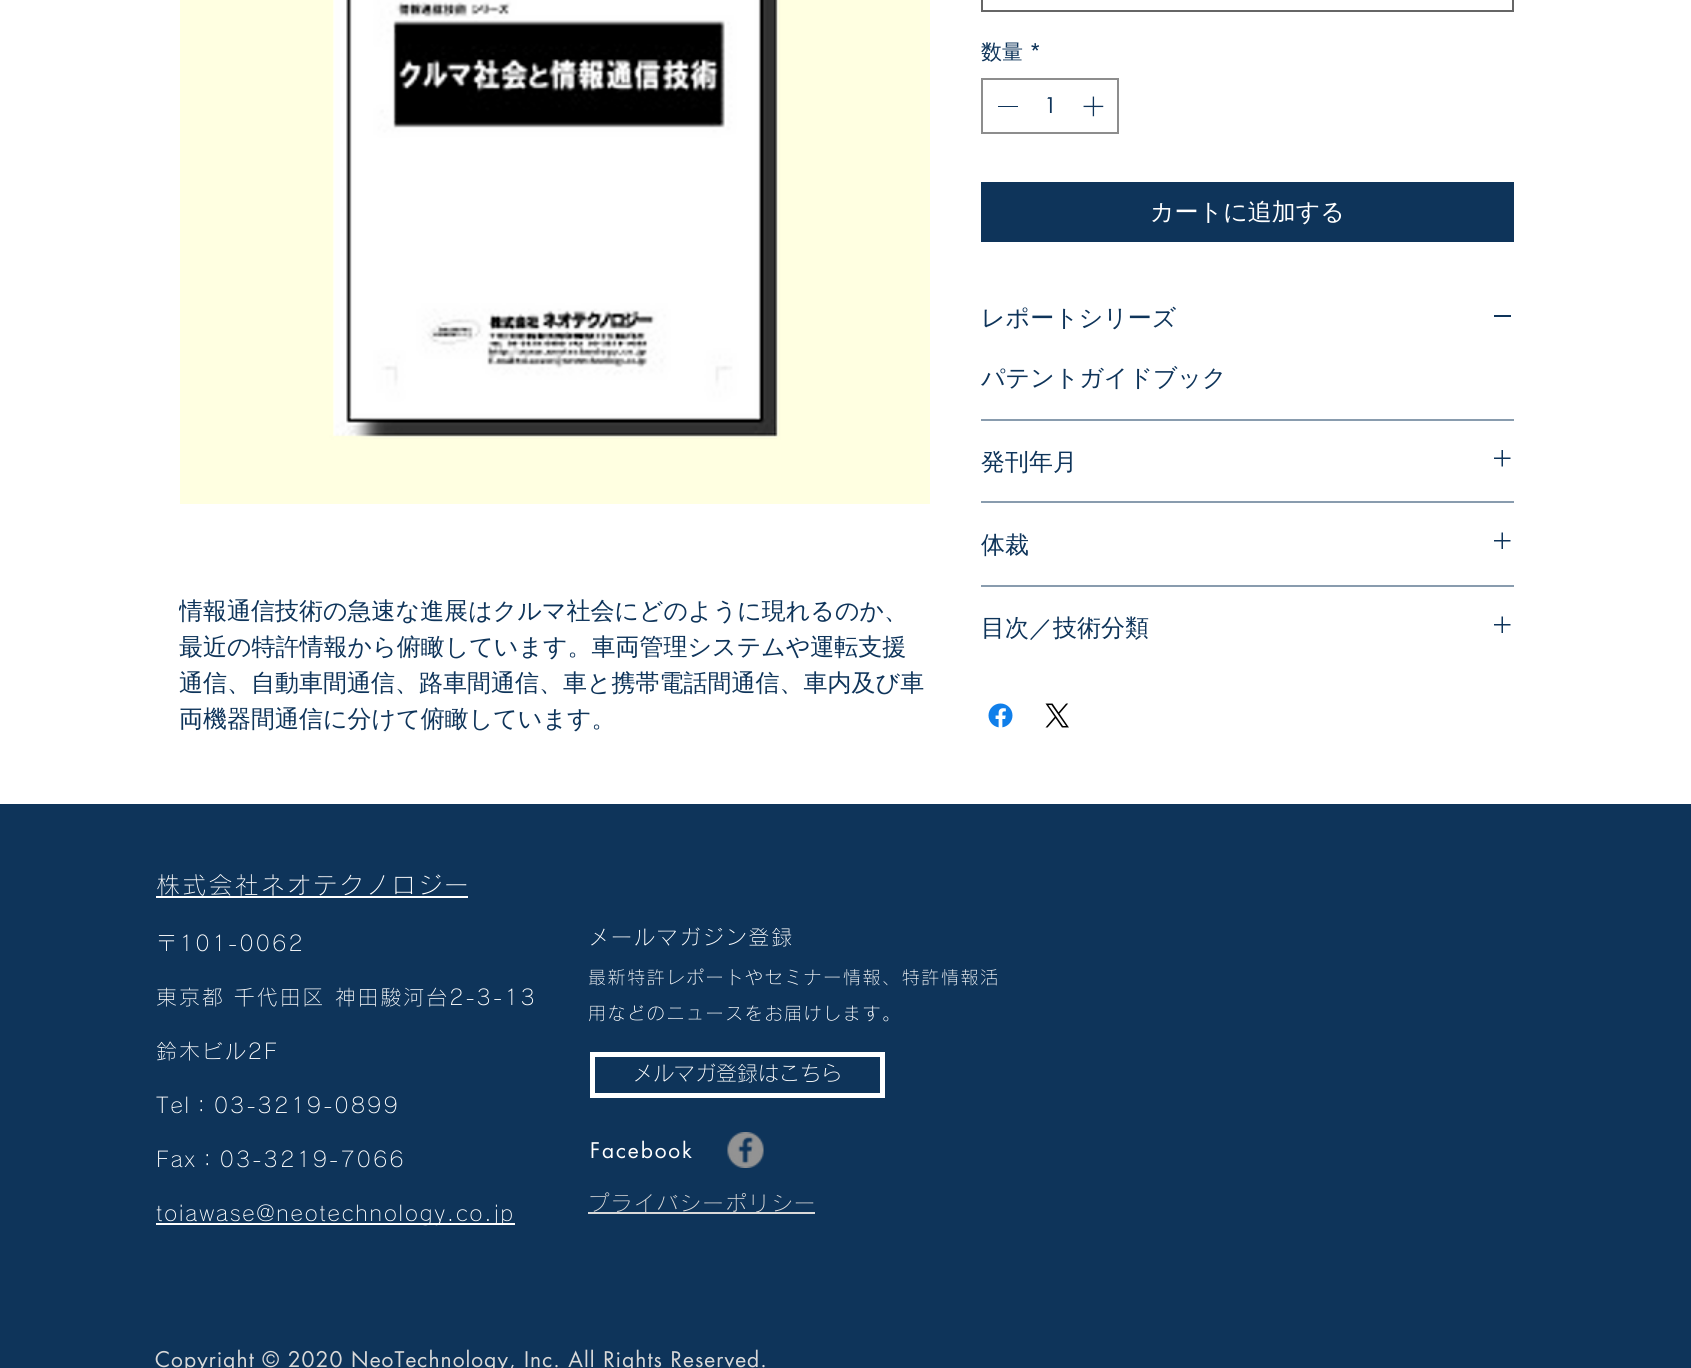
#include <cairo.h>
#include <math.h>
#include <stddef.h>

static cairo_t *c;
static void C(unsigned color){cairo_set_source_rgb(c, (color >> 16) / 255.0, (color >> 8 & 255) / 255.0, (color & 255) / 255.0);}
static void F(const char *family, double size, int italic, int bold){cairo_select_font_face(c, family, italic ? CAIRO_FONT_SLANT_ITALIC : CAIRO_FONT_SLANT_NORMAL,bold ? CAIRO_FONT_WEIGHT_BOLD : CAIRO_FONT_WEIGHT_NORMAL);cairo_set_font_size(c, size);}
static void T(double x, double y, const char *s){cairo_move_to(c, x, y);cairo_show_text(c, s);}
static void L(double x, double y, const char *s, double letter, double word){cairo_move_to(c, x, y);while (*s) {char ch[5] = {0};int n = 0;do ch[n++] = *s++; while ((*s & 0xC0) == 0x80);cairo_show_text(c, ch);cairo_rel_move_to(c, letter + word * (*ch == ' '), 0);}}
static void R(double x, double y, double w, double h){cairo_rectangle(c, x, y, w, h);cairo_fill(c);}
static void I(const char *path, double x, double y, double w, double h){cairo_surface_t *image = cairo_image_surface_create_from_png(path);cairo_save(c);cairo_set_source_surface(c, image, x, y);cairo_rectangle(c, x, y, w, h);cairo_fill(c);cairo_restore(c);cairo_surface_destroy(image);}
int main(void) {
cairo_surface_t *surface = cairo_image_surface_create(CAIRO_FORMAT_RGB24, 1691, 1368);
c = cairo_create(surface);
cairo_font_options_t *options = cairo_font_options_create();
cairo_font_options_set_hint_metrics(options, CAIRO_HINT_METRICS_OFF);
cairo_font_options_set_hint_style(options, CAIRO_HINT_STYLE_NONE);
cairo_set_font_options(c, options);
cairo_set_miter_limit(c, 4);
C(0xffffff);
cairo_paint(c);
cairo_rectangle(c,982,-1,531,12);
C(0x666666);
cairo_stroke(c);
F("WenQuanYi Zen Hei Medium",21,0,0);
C(0x0e345a);
T(981,59,"数量");
F("futura",21,0,0);
T(1029,59,"*");
cairo_rectangle(c,982,79,136,54);
C(0x8d8d8d);
cairo_stroke(c);
C(0x0e345a);
R(998,106,20,1);
T(1044,113,"1");
I("1.png",1083,96,21,21);
R(981,182,533,60);
F("WenQuanYi Zen Hei Medium",24,0,0);
C(0xffffff);
T(1150,220,"カートに追加する");
C(0x899cae);
R(981,419,533,2);
C(0x0e345a);
T(981,326,"レポートシリーズ");
R(1494,315,17,2);
T(981,386,"パテントガイドブック");
C(0x899cae);
R(981,501,533,2);
C(0x0e345a);
T(981,470,"発刊年月");
I("2.png",1494,450,17,17);
C(0x899cae);
R(981,585,533,2);
C(0x0e345a);
T(981,553,"体裁");
I("3.png",1494,532,17,17);
T(981,636,"目次／技術分類");
I("3.png",1494,616,17,17);
I("4.png",988,703,25,25);
I("5.png",1045,703,24,25);
I("6.png",180,0,750,504);
cairo_save(c);
cairo_rectangle(c,179,593,750,144);
cairo_clip(c);
T(179,619,"情報通信技術の急速な進展はクルマ社会にどのように現れるのか、");
cairo_restore(c);
T(179,655,"最近の特許情報から俯瞰しています。車両管理システムや運転支援");
T(179,691,"通信、自動車間通信、路車間通信、車と携帯電話間通信、車内及び車");
T(179,727,"両機器間通信に分けて俯瞰しています。");
R(0,804,1691,564);
F("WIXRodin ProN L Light",24,0,0);
C(0xffffff);
L(156,894,"株式会社ネオテクノロジー",2.2,0);
R(156,896,312,2);
F("WIXRodin ProN L Light",21,0,0);
L(156,951,"〒101-0062",1.9,0);
L(156,1005,"東京都 千代田区 神田駿河台2-3-13",1.9,0);
L(156,1059,"鈴木ビル2F",1.9,0);
L(156,1113,"Tel：03-3219-0899",1.9,0);
L(156,1167,"Fax：03-3219-7066",1.9,0);
R(156,1223,359,2);
L(156,1221,"toiawase@neotechnology.co.jp",1.9,0);
L(588,945,"メールマガジン登録",1.9,0);
F("WIXRodin ProN L Light",18,0,0);
L(588,984,"最新特許レポートやセミナー情報、特許情報活",1.6,0);
L(588,1020,"用などのニュースをお届けします。",1.6,0);
cairo_rectangle(c,592.5,1054.5,290,41);
cairo_set_line_width(c,5);
cairo_stroke(c);
F("WIXRodin ProN L Light",21,0,0);
T(632,1081,"メルマガ登録はこちら");
F("futura",21,0,0);
L(590,1158,"Facebook",1.9,0);
I("7.png",727,1132,37,36);
C(0xd9d9d9);
R(588,1212,227,2);
F("WIXRodin ProN L Light",21,0,0);
L(588,1211,"プライバシーポリシー",1.9,0);
F("futura",21,0,0);
L(155,1367,"Copyright © 2020 NeoTechnology, Inc. All Rights Reserved.",1.05,0);
cairo_surface_write_to_png(surface, "o.png");
cairo_font_options_destroy(options);
cairo_destroy(c);
cairo_surface_destroy(surface);
return 0;
}
